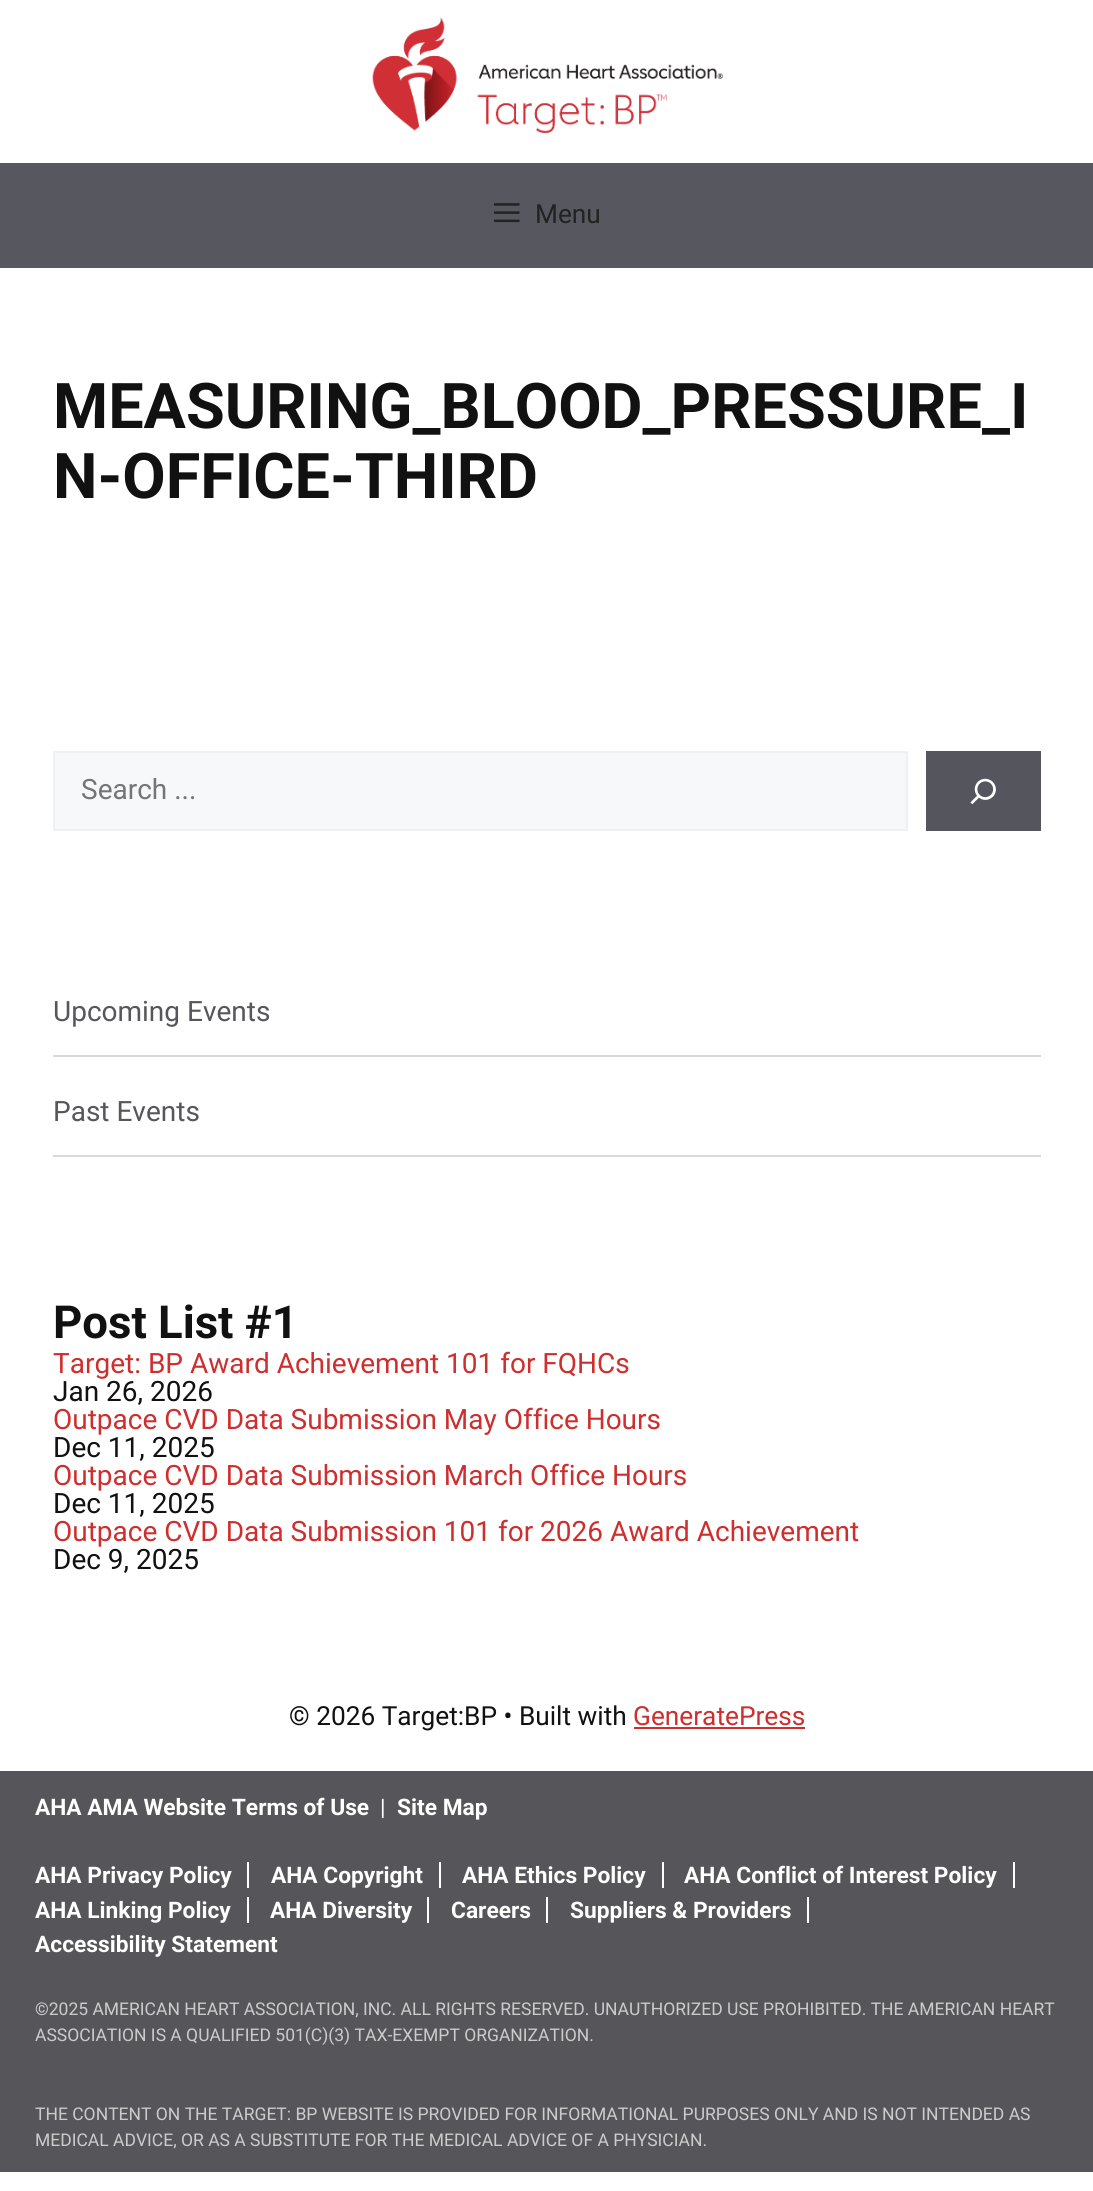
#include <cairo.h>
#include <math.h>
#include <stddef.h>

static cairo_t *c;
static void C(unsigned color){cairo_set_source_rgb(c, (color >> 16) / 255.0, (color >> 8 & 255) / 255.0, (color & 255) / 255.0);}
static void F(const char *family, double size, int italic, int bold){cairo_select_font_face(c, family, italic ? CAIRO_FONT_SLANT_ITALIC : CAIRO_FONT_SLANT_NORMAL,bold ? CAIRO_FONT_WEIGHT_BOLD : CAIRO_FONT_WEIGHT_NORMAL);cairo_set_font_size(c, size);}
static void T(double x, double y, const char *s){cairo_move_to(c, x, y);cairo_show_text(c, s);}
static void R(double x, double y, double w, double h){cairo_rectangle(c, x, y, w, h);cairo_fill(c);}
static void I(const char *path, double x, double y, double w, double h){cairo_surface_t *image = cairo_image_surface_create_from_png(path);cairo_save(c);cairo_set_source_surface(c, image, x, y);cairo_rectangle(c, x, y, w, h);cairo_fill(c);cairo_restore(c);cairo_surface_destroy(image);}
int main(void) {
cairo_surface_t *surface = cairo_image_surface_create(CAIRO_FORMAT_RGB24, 1093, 2191);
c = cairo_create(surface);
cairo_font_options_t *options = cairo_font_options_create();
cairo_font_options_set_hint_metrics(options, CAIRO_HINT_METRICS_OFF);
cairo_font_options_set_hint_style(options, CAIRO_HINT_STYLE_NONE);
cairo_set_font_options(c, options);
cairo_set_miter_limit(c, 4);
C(0xffffff);
cairo_paint(c);
I("1.png",372,17,351,116);
C(0x575760);
R(0,163,1093,105);
I("2.png",494,203,26,20);
F("Roboto",26.25,0,0);
C(0x222222);
T(535,223,"Menu");
F("Roboto",63,0,1);
C(0x111111);
T(53,428,"MEASURING_BLOOD_PRESSURE_I");
T(53,498,"N-OFFICE-THIRD");
C(0xf7f8f9);
cairo_rectangle(c,54,752,853,78);
cairo_fill_preserve(c);
C(0xf0f0f0);
cairo_stroke(c);
F("Roboto",28,0,0);
C(0x757575);
T(81,799,"Search ...");
C(0x55555e);
R(926,751,115,80);
I("3.png",970,778,26,27);
C(0xd9d9d9);
R(53,1055,988,2);
C(0x56565b);
T(53,1021,"Upcoming Events");
C(0xd9d9d9);
R(53,1155,988,2);
C(0x56565b);
T(53,1121,"Past Events");
F("Roboto",45.5,0,1);
C(0x111111);
T(53,1338,"Post List #1");
F("Roboto",28,0,0);
C(0xcf2e2e);
T(53,1373,"Target: BP Award Achievement 101 for FQHCs");
C(0x111111);
T(53,1401,"Jan 26, 2026");
C(0xcf2e2e);
T(53,1429,"Outpace CVD Data Submission May Office Hours");
C(0x111111);
T(53,1457,"Dec 11, 2025");
C(0xcf2e2e);
T(53,1485,"Outpace CVD Data Submission March Office Hours");
C(0x111111);
T(53,1513,"Dec 11, 2025");
C(0xcf2e2e);
T(53,1541,"Outpace CVD Data Submission 101 for 2026 Award Achievement");
C(0x111111);
T(53,1569,"Dec 9, 2025");
F("Roboto",26.25,0,0);
T(289,1725,"© 2026 Target:BP • Built with");
C(0xcf2e2e);
T(633,1725,"GeneratePress");
R(634,1727,171,2);
C(0x56565a);
R(0,1771,1093,401);
F("Roboto",22.75,0,1);
C(0xffffff);
T(35,1815,"AHA AMA Website Terms of Use");
F("Roboto",22.75,0,0);
T(380,1815,"|");
F("Roboto",22.75,0,1);
T(397,1815,"Site Map");
T(35,1883,"AHA Privacy Policy");
R(247,1862,2,26);
T(271,1883,"AHA Copyright");
R(439,1862,2,26);
T(462,1883,"AHA Ethics Policy");
R(662,1862,2,26);
T(684,1883,"AHA Conflict of Interest Policy");
R(1013,1862,2,26);
T(35,1918,"AHA Linking Policy");
R(247,1897,2,26);
T(270,1918,"AHA Diversity");
R(427,1897,2,26);
T(451,1918,"Careers");
R(546,1897,2,26);
T(570,1918,"Suppliers & Providers");
R(807,1897,2,26);
T(35,1952,"Accessibility Statement");
F("Roboto",17.5,0,0);
C(0xcccbcc);
T(35,2015,"©2025 AMERICAN HEART ASSOCIATION, INC. ALL RIGHTS RESERVED. UNAUTHORIZED USE PROHIBITED. THE AMERICAN HEART");
T(35,2041,"ASSOCIATION IS A QUALIFIED 501(C)(3) TAX-EXEMPT ORGANIZATION.");
T(35,2120,"THE CONTENT ON THE TARGET: BP WEBSITE IS PROVIDED FOR INFORMATIONAL PURPOSES ONLY AND IS NOT INTENDED AS");
T(35,2146,"MEDICAL ADVICE, OR AS A SUBSTITUTE FOR THE MEDICAL ADVICE OF A PHYSICIAN.");
cairo_surface_write_to_png(surface, "o.png");
cairo_font_options_destroy(options);
cairo_destroy(c);
cairo_surface_destroy(surface);
return 0;
}
